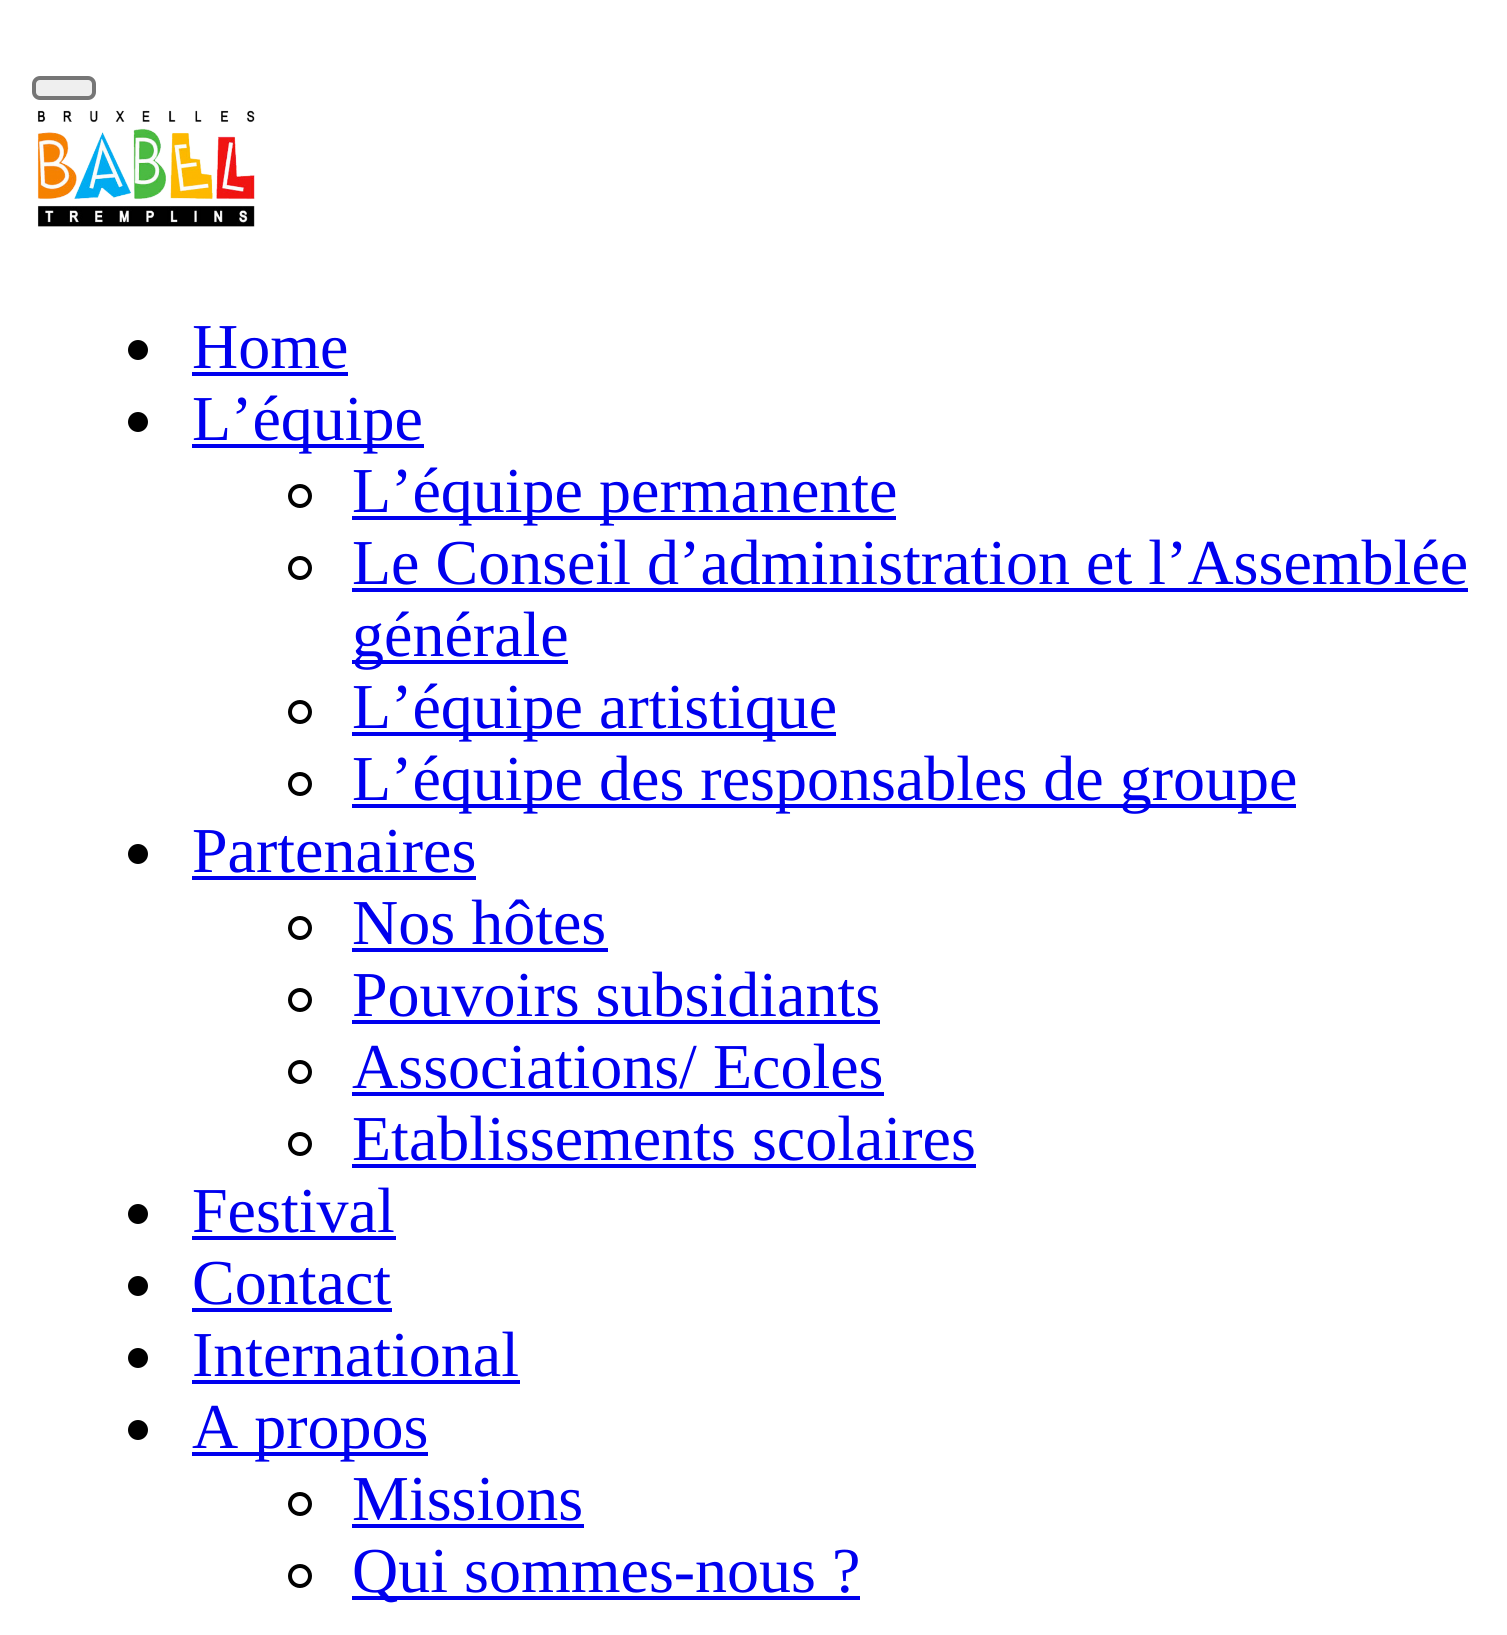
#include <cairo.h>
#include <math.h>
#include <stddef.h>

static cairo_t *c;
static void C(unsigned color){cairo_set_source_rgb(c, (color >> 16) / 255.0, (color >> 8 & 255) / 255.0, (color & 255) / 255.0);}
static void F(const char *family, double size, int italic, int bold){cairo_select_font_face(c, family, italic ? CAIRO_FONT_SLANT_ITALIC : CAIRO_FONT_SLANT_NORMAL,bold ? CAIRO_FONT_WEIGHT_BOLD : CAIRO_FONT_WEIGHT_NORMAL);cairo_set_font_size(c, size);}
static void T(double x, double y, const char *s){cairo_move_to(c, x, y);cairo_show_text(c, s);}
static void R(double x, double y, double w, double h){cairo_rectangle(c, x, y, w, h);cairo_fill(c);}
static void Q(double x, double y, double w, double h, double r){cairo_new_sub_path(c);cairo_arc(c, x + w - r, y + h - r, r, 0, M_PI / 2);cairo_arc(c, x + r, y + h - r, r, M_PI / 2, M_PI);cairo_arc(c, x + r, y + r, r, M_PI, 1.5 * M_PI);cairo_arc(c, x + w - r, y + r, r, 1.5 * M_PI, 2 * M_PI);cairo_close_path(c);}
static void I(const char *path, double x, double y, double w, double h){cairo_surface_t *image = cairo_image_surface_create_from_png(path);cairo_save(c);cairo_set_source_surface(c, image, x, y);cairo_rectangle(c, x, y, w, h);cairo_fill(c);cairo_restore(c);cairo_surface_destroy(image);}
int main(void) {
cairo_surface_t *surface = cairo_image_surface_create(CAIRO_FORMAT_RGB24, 1507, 1635);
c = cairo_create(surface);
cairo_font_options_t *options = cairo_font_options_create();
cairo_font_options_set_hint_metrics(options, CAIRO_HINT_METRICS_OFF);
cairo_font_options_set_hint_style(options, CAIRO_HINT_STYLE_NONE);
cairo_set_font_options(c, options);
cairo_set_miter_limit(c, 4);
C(0xffffff);
cairo_paint(c);
C(0xefefef);
Q(34,78,60,20,6);
cairo_fill_preserve(c);
C(0x767676);
cairo_set_line_width(c,4);
cairo_stroke(c);
I("1.png",37,110,218,117);
C(0x000000);
cairo_arc(c,138,350,10,0,2 * M_PI);
cairo_fill(c);
F("Liberation Serif",64,0,0);
C(0x0000ee);
T(192,368,"Home");
R(192,372,156,4);
C(0x000000);
cairo_new_path(c);
cairo_arc(c,138,422,10,0,2 * M_PI);
cairo_fill(c);
C(0x0000ee);
R(192,444,232,4);
T(192,440,"L’équipe");
cairo_new_path(c);
cairo_arc(c,300,496,10,0,2 * M_PI);
C(0x000000);
cairo_stroke(c);
C(0x0000ee);
R(352,516,544,4);
T(352,512,"L’équipe permanente");
cairo_new_path(c);
cairo_arc(c,300,568,10,0,2 * M_PI);
C(0x000000);
cairo_stroke(c);
C(0x0000ee);
T(352,584,"Le Conseil d’administration et l’Assemblée");
R(352,588,1116,4);
R(352,660,216,4);
T(352,656,"générale");
cairo_new_path(c);
cairo_arc(c,300,712,10,0,2 * M_PI);
C(0x000000);
cairo_stroke(c);
C(0x0000ee);
R(352,732,484,4);
T(352,728,"L’équipe artistique");
cairo_new_path(c);
cairo_arc(c,300,784,10,0,2 * M_PI);
C(0x000000);
cairo_stroke(c);
C(0x0000ee);
R(352,804,944,4);
T(352,800,"L’équipe des responsables de groupe");
C(0x000000);
cairo_new_path(c);
cairo_arc(c,138,854,10,0,2 * M_PI);
cairo_fill(c);
C(0x0000ee);
T(192,872,"Partenaires");
R(192,876,284,4);
cairo_new_path(c);
cairo_arc(c,300,928,10,0,2 * M_PI);
C(0x000000);
cairo_stroke(c);
C(0x0000ee);
T(352,944,"Nos hôtes");
R(352,948,256,4);
cairo_new_path(c);
cairo_arc(c,300,1000,10,0,2 * M_PI);
C(0x000000);
cairo_stroke(c);
C(0x0000ee);
T(352,1016,"Pouvoirs subsidiants");
R(352,1020,528,4);
cairo_new_path(c);
cairo_arc(c,300,1072,10,0,2 * M_PI);
C(0x000000);
cairo_stroke(c);
C(0x0000ee);
T(352,1088,"Associations/ Ecoles");
R(352,1092,532,4);
cairo_new_path(c);
cairo_arc(c,300,1144,10,0,2 * M_PI);
C(0x000000);
cairo_stroke(c);
C(0x0000ee);
T(352,1160,"Etablissements scolaires");
R(352,1164,624,4);
C(0x000000);
cairo_new_path(c);
cairo_arc(c,138,1214,10,0,2 * M_PI);
cairo_fill(c);
C(0x0000ee);
T(192,1232,"Festival");
R(192,1236,204,4);
C(0x000000);
cairo_new_path(c);
cairo_arc(c,138,1286,10,0,2 * M_PI);
cairo_fill(c);
C(0x0000ee);
T(192,1304,"Contact");
R(192,1308,200,4);
C(0x000000);
cairo_new_path(c);
cairo_arc(c,138,1358,10,0,2 * M_PI);
cairo_fill(c);
C(0x0000ee);
T(192,1376,"International");
R(192,1380,328,4);
C(0x000000);
cairo_new_path(c);
cairo_arc(c,138,1430,10,0,2 * M_PI);
cairo_fill(c);
C(0x0000ee);
R(192,1452,236,4);
T(192,1448,"A propos");
cairo_new_path(c);
cairo_arc(c,300,1504,10,0,2 * M_PI);
C(0x000000);
cairo_stroke(c);
C(0x0000ee);
T(352,1520,"Missions");
R(352,1524,232,4);
cairo_new_path(c);
cairo_arc(c,300,1576,10,0,2 * M_PI);
C(0x000000);
cairo_stroke(c);
C(0x0000ee);
R(352,1596,508,4);
T(352,1592,"Qui sommes-nous ?");
cairo_surface_write_to_png(surface, "o.png");
cairo_font_options_destroy(options);
cairo_destroy(c);
cairo_surface_destroy(surface);
return 0;
}
